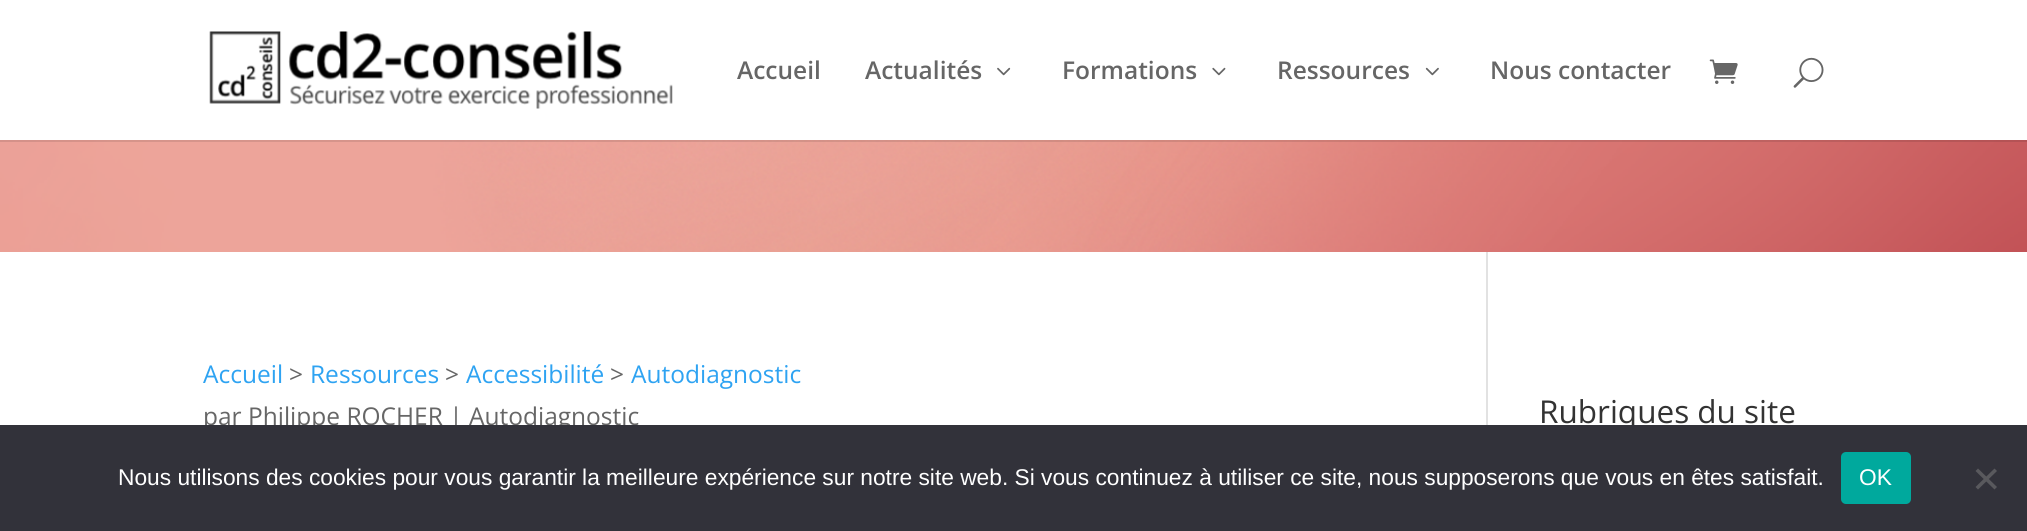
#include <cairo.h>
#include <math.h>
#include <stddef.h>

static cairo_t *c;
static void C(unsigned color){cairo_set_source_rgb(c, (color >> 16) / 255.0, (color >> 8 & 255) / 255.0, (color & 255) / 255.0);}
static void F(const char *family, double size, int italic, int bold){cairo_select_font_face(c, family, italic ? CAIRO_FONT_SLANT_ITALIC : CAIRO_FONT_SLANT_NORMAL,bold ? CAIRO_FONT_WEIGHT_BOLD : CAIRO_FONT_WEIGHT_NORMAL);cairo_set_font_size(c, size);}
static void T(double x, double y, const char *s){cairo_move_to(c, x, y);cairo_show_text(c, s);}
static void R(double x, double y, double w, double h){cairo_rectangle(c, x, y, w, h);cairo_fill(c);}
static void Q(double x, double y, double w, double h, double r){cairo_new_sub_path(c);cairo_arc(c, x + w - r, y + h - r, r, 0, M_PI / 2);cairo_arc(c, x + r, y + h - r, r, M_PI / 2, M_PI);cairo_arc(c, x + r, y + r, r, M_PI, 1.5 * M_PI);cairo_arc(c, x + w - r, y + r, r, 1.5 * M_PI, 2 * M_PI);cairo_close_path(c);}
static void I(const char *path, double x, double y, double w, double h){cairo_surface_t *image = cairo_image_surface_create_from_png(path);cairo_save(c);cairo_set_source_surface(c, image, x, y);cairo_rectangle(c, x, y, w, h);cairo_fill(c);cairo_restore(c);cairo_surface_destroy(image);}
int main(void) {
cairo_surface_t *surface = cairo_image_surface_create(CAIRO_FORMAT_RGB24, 2027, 531);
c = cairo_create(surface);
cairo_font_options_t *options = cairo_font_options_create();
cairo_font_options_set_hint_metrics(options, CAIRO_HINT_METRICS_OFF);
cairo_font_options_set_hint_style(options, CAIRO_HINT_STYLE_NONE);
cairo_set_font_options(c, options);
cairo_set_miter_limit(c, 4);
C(0xffffff);
cairo_paint(c);
I("7.png",0,140,2027,112);
cairo_set_source_rgba(c,0,0,0,0.1);
R(0,140,2027,2);
I("1.png",209,31,464,78);
F("Open Sans SemiBold",24.5,0,0);
C(0x666666);
T(737,79,"Accueil");
T(865,79,"Actualités");
I("2.png",997,67,14,9);
T(1062,79,"Formations");
I("3.png",1212,67,14,9);
T(1277,79,"Ressources");
I("4.png",1425,67,14,9);
T(1490,79,"Nous contacter");
I("5.png",1709,59,29,25);
I("6.png",1793,57,31,31);
F("Open Sans",24.5,0,0);
C(0x2ea3f2);
T(203,383,"Accueil");
C(0x666666);
T(289,383,">");
C(0x2ea3f2);
T(310,383,"Ressources");
C(0x666666);
T(445,383,">");
C(0x2ea3f2);
T(466,383,"Accessibilité");
C(0x666666);
T(610,383,">");
C(0x2ea3f2);
T(631,383,"Autodiagnostic");
C(0xe2e2e2);
R(1486,252,2,173);
C(0x666666);
T(203,425,"par Philippe ROCHER | Autodiagnostic");
F("Open Sans",31.5,0,0);
C(0x333333);
T(1539,423,"Rubriques du site");
C(0x32323a);
R(0,425,2027,106);
F("Liberation Sans",22.75,0,0);
C(0xffffff);
T(118,485,"Nous utilisons des cookies pour vous garantir la meilleure expérience sur notre site web. Si vous continuez à utiliser ce site, nous supposerons que vous en êtes satisfait.");
C(0x00a99d);
Q(1841,452,70,52,5);
cairo_fill(c);
C(0xffffff);
T(1859,485,"OK");
C(0x59595d);
cairo_new_path(c);
cairo_move_to(c,1994.5,468.5);
cairo_line_to(c,1997,471);
cairo_line_to(c,1978,489.5);
cairo_line_to(c,1975.5,487);
cairo_close_path(c);
cairo_fill(c);
cairo_new_path(c);
cairo_move_to(c,1975.5,471);
cairo_line_to(c,1978,468.5);
cairo_line_to(c,1997,487);
cairo_line_to(c,1994.5,489.5);
cairo_close_path(c);
cairo_fill(c);
cairo_surface_write_to_png(surface, "o.png");
cairo_font_options_destroy(options);
cairo_destroy(c);
cairo_surface_destroy(surface);
return 0;
}
